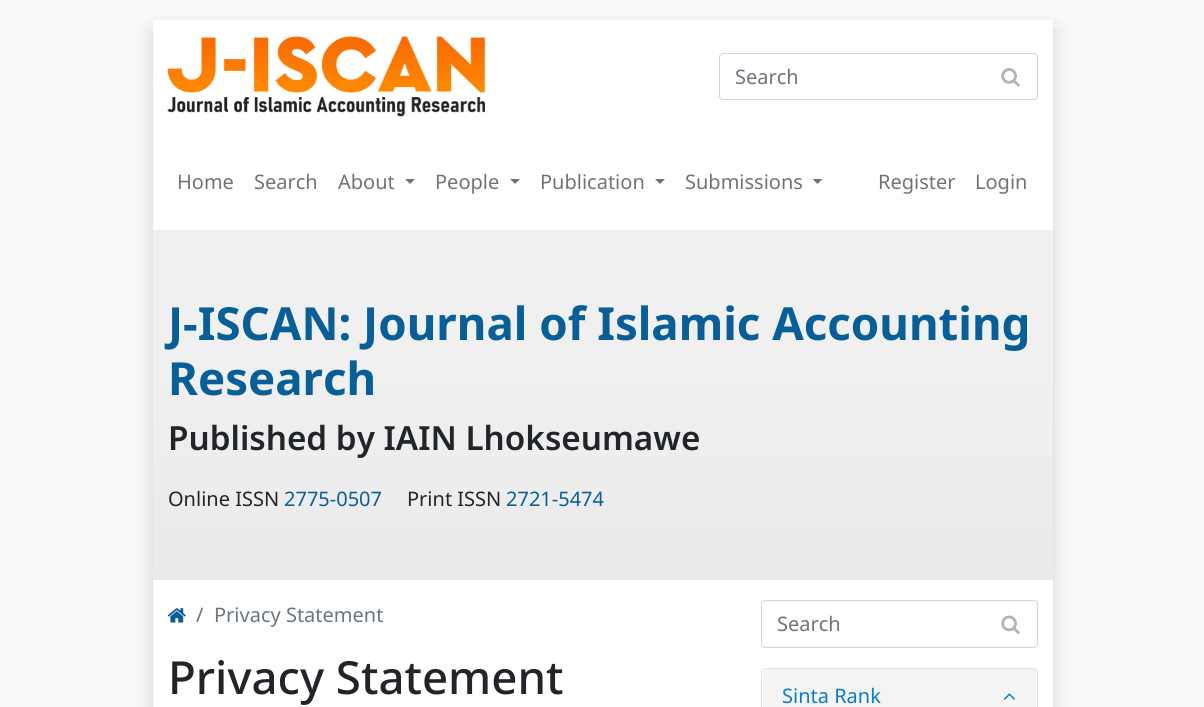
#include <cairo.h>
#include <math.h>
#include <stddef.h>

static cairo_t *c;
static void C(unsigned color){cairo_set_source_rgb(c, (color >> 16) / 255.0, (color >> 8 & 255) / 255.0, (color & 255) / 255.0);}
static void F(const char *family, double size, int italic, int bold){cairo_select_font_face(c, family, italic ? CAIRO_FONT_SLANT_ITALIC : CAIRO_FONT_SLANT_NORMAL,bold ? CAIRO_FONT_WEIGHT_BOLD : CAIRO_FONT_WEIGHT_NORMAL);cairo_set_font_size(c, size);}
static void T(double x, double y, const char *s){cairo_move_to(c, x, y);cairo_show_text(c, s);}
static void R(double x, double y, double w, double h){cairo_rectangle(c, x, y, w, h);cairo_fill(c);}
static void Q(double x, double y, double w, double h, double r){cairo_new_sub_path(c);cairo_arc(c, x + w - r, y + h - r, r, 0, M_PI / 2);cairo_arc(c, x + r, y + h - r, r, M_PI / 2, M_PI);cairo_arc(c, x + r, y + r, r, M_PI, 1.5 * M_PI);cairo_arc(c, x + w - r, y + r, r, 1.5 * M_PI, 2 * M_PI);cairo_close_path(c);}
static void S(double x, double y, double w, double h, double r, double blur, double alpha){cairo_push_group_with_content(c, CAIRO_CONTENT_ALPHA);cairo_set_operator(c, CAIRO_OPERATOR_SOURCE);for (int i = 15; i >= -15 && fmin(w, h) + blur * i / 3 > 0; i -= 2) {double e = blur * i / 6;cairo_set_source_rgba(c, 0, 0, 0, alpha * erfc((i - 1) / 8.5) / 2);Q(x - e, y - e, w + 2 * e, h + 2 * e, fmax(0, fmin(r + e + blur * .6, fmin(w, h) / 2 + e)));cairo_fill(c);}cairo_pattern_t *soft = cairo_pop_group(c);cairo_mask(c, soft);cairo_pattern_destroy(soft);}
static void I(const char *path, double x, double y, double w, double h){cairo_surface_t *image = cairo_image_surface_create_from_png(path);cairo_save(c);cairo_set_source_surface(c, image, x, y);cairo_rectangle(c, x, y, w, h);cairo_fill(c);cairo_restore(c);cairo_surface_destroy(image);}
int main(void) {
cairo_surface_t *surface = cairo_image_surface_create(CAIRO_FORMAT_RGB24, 1204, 707);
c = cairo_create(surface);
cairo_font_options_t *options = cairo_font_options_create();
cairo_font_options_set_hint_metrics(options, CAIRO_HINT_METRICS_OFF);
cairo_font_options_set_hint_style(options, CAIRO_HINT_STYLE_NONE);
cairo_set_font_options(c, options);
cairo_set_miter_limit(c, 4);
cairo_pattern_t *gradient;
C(0xf7f9fb);
cairo_paint(c);
C(0x000000);
S(153,30,900,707,0,10,.15);
C(0xffffff);
R(153,20,900,687);
I("1.png",167,36,318,81);
Q(719.5,53.5,318,46,3.5);
C(0xced4da);
cairo_set_line_width(c,1);
cairo_stroke(c);
F("Noto Sans",20,0,0);
C(0x6c757d);
T(735,84,"Search");
I("2.png",1001,68,19,19);
C(0x737373);
T(177,189,"Home");
T(254,189,"Search");
T(338,189,"About");
cairo_new_path(c);
cairo_move_to(c,405,179);
cairo_line_to(c,415,179);
cairo_line_to(c,410,184);
cairo_close_path(c);
cairo_fill(c);
T(435,189,"People");
cairo_new_path(c);
cairo_move_to(c,510,179);
cairo_line_to(c,520,179);
cairo_line_to(c,515,184);
cairo_close_path(c);
cairo_fill(c);
T(540,189,"Publication");
cairo_new_path(c);
cairo_move_to(c,655,179);
cairo_line_to(c,665,179);
cairo_line_to(c,660,184);
cairo_close_path(c);
cairo_fill(c);
T(685,189,"Submissions");
cairo_new_path(c);
cairo_move_to(c,812.5,179);
cairo_line_to(c,822.5,179);
cairo_line_to(c,817.5,184);
cairo_close_path(c);
cairo_fill(c);
T(878,189,"Register");
T(975,189,"Login");
gradient = cairo_pattern_create_linear(603,580,603,230);
cairo_pattern_add_color_stop_rgba(gradient,0,0.918,0.918,0.918,1);
cairo_pattern_add_color_stop_rgba(gradient,.6,0.941,0.941,0.941,1);
cairo_set_source(c,gradient);
cairo_pattern_destroy(gradient);
R(153,230,900,350);
F("Noto Sans",45.6,0,1);
C(0x085e97);
T(168,340,"J-ISCAN: Journal of Islamic Accounting");
T(168,395,"Research");
F("Noto Sans SemiBold",33.25,0,0);
C(0x212529);
T(168,450,"Published by IAIN Lhokseumawe");
F("Noto Sans",20,0,0);
T(168,506,"Online ISSN");
C(0x085e97);
T(284,506,"2775-0507");
C(0x212529);
T(407,506,"Print ISSN");
C(0x085e97);
T(506,506,"2721-5474");
I("3.png",167,608,19,15);
C(0x6c757d);
T(196,622,"/");
T(214,622,"Privacy Statement");
F("Noto Sans Medium",45.6,0,0);
C(0x212529);
T(168,694,"Privacy Statement");
Q(761.5,600.5,276,47,3.5);
C(0xced4da);
cairo_stroke(c);
F("Noto Sans",20,0,0);
C(0x6c757d);
T(777,631,"Search");
I("4.png",1001,615,19,20);
Q(761.5,668.5,276,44,4.5);
C(0xdfdfdf);
cairo_stroke(c);
C(0xf4f4f4);
cairo_new_path(c);
cairo_move_to(c,767,669);
cairo_line_to(c,1032,669);
cairo_curve_to(c,1034,669,1036,671,1036,673);
cairo_line_to(c,1036,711);
cairo_line_to(c,763,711);
cairo_line_to(c,763,673);
cairo_curve_to(c,763,671,765,669,767,669);
cairo_close_path(c);
cairo_fill(c);
C(0x0b7cc7);
T(782,703,"Sinta Rank");
I("5.png",1003,693,12,7);
cairo_surface_write_to_png(surface, "o.png");
cairo_font_options_destroy(options);
cairo_destroy(c);
cairo_surface_destroy(surface);
return 0;
}
